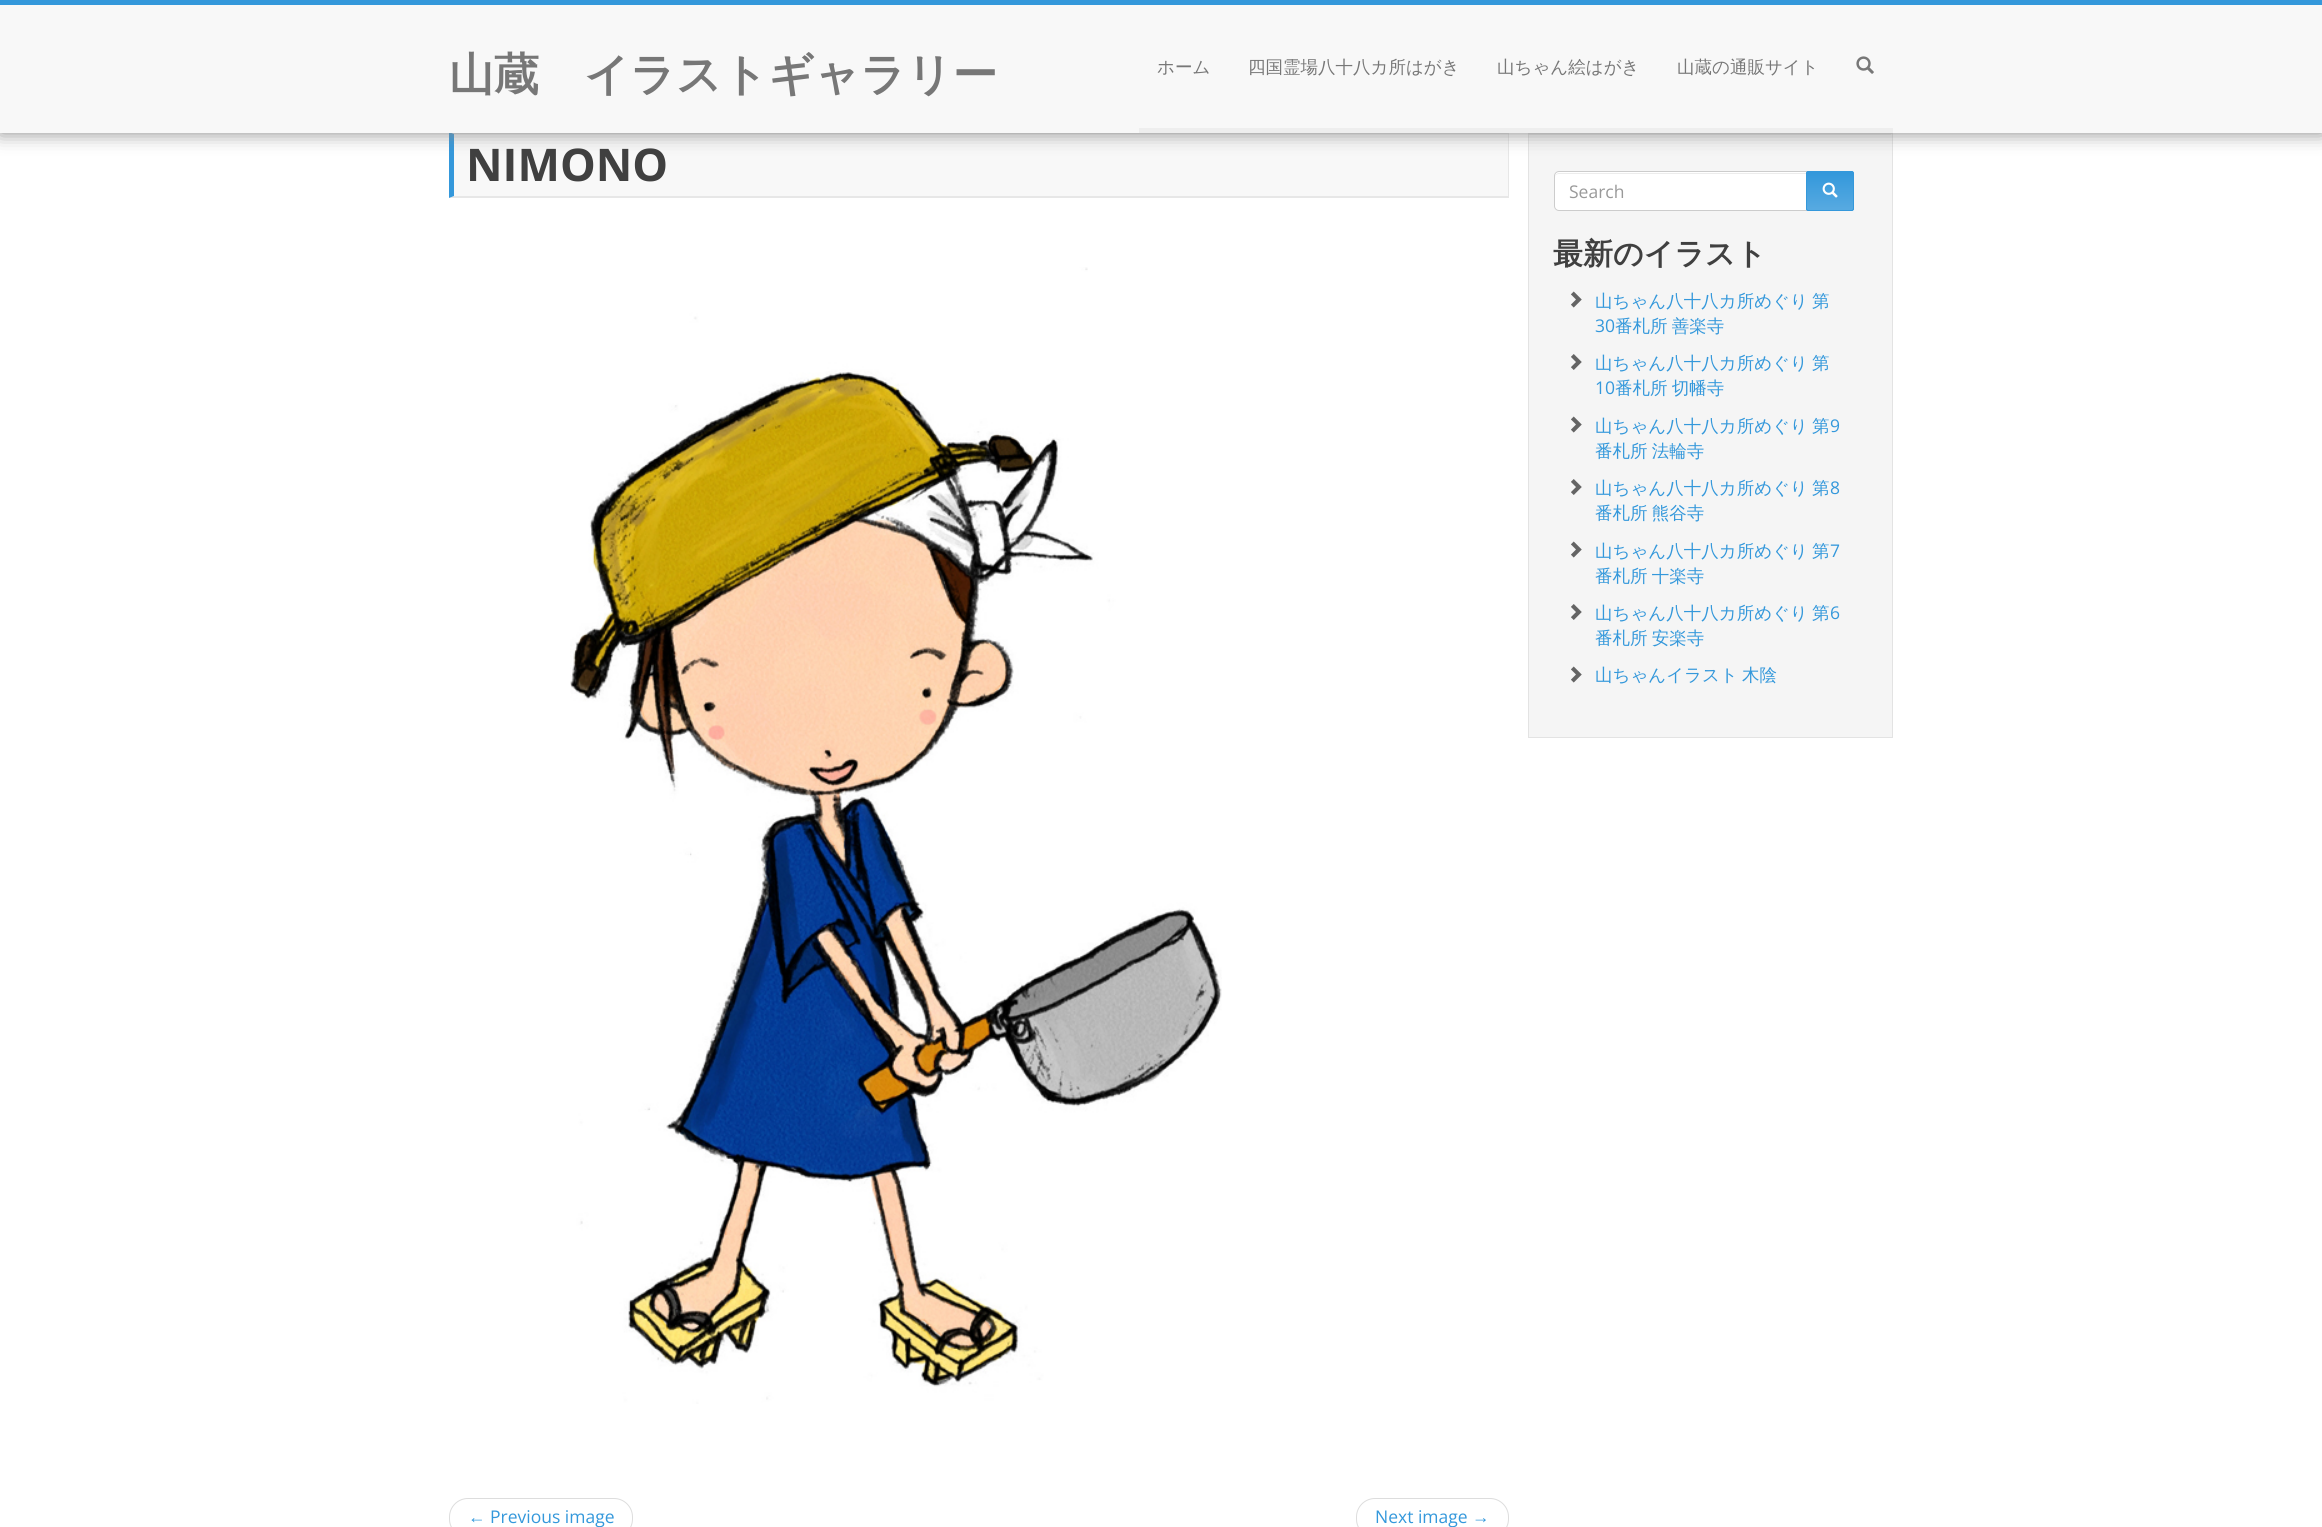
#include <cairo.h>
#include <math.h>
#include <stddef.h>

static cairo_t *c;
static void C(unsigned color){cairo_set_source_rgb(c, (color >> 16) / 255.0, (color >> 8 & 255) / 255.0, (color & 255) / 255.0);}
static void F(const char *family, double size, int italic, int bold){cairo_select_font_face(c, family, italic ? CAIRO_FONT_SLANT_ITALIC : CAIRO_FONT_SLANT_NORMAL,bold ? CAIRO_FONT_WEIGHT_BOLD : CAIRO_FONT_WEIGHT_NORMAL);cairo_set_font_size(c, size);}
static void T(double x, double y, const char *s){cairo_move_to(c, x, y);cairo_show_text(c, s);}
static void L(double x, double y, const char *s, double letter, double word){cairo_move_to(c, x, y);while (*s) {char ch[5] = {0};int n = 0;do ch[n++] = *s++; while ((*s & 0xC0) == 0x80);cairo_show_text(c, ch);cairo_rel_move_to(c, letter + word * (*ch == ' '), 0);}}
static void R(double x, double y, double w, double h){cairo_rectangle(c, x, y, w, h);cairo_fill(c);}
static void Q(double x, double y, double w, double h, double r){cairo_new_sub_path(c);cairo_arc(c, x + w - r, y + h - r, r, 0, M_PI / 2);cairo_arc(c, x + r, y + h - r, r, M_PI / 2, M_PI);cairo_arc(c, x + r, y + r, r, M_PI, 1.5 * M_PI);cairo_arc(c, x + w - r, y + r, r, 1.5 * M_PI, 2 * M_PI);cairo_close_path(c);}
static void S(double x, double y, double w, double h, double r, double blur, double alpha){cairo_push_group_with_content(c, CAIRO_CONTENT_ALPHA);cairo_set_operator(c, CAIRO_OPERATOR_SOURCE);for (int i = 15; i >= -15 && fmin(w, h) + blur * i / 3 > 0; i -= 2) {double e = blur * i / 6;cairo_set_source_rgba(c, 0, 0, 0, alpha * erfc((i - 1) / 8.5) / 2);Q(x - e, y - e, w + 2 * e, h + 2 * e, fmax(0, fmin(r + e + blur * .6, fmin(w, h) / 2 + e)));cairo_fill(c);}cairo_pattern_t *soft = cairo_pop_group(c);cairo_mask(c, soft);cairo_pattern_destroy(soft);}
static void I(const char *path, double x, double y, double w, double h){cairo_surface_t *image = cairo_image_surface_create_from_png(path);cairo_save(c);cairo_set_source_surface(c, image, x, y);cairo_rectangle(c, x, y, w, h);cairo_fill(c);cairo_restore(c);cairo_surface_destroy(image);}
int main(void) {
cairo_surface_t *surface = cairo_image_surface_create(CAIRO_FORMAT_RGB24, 2322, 1527);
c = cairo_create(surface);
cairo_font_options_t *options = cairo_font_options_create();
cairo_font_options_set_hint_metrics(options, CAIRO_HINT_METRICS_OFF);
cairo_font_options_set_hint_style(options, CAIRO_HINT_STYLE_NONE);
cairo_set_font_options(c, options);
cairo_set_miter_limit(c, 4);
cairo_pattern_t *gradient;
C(0xffffff);
cairo_paint(c);
C(0xf8f8f8);
R(454,134,1054,62);
C(0xe7e7e7);
cairo_new_path(c);
cairo_move_to(c,449,132);
cairo_line_to(c,1509,132);
cairo_line_to(c,1508,134);
cairo_line_to(c,454,134);
cairo_close_path(c);
cairo_fill(c);
R(1508,133,1,65);
cairo_new_path(c);
cairo_move_to(c,1509,198);
cairo_line_to(c,449,198);
cairo_line_to(c,454,196);
cairo_line_to(c,1508,196);
cairo_close_path(c);
cairo_fill(c);
C(0x3498db);
cairo_new_path(c);
cairo_move_to(c,449,198);
cairo_line_to(c,449,132);
cairo_line_to(c,454,134);
cairo_line_to(c,454,196);
cairo_close_path(c);
cairo_fill(c);
C(0xf5f5f5);
R(1529,134,363,603);
C(0xe9e9e9);
R(1529,134,362,1);
cairo_rectangle(c,1528.5,133.5,364,604);
C(0xe3e3e3);
cairo_set_line_width(c,1);
cairo_stroke(c);
C(0x888888);
S(0,0,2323,133,0,9.5,1);
C(0xf8f8f8);
R(0,5,2322,128);
C(0x3498db);
R(0,0,2322,5);
F("WenQuanYi Zen Hei",45,0,1);
C(0x777777);
T(449,90,"山蔵　イラストギャラリー");
C(0xeeeeee);
R(1139,128,699,5);
F("WenQuanYi Zen Hei Medium",17.5,0,0);
C(0x777777);
T(1157,73,"ホーム");
T(1248,73,"四国霊場八十八カ所はがき");
T(1497,73,"山ちゃん絵はがき");
T(1677,73,"山蔵の通販サイト");
C(0xeeeeee);
R(1838,128,55,5);
I("1.png",1856,56,18,18);
F("Open Sans",45,0,1);
C(0x404040);
T(466,181,"NIMONO");
I("2.png",570,267,652,1137);
Q(449.5,1498.5,183,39,18.5);
C(0xdddddd);
cairo_stroke(c);
F("Liberation Sans",17.5,0,0);
C(0x3498db);
T(468,1523,"←");
F("Open Sans",17.5,0,0);
T(490,1523,"Previous image");
Q(1356.5,1498.5,152,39,18.5);
C(0xdddddd);
cairo_stroke(c);
C(0x3498db);
T(1375,1523,"Next image");
F("Liberation Sans",17.5,0,0);
T(1472,1523,"→");
C(0xffffff);
cairo_new_path(c);
cairo_move_to(c,1559,171);
cairo_line_to(c,1808,171);
cairo_line_to(c,1808,211);
cairo_line_to(c,1559,211);
cairo_curve_to(c,1556,211,1554,209,1554,206);
cairo_line_to(c,1554,176);
cairo_curve_to(c,1554,173,1556,171,1559,171);
cairo_close_path(c);
cairo_fill(c);
C(0xececec);
cairo_new_path(c);
cairo_move_to(c,1559,174);
cairo_line_to(c,1806,174);
cairo_line_to(c,1806,173);
cairo_line_to(c,1559,173);
cairo_curve_to(c,1557,173,1555,175,1555,177);
cairo_line_to(c,1555,178);
cairo_curve_to(c,1555,175,1557,174,1559,174);
cairo_close_path(c);
cairo_fill(c);
cairo_new_path(c);
cairo_move_to(c,1559,171.5);
cairo_line_to(c,1807.5,171.5);
cairo_line_to(c,1807.5,210.5);
cairo_line_to(c,1559,210.5);
cairo_curve_to(c,1556.5,210.5,1554.5,208.5,1554.5,206);
cairo_line_to(c,1554.5,176);
cairo_curve_to(c,1554.5,173.5,1556.5,171.5,1559,171.5);
cairo_close_path(c);
C(0xcccccc);
cairo_stroke(c);
F("Open Sans",17.5,0,0);
C(0x999999);
T(1569,198,"Search");
C(0x3498db);
Q(1806,171,48,40,2.5);
cairo_fill(c);
gradient = cairo_pattern_create_linear(1830,173,1830,210);
cairo_pattern_add_color_stop_rgba(gradient,0,0.204,0.596,0.859,1);
cairo_pattern_add_color_stop_rgba(gradient,1,0.341,0.667,0.882,1);
cairo_set_source(c,gradient);
cairo_pattern_destroy(gradient);
R(1806,173,48,37);
Q(1806.5,171.5,47,39,2);
C(0x3498db);
cairo_stroke(c);
I("3.png",1822,182,16,16);
F("WenQuanYi Zen Hei",30,0,1);
C(0x404040);
T(1553,264,"最新のイラスト");
I("4.png",1571,291,11,17);
F("WenQuanYi Zen Hei Medium",17.5,0,0);
C(0x3498db);
L(1595,307,"山ちゃん八十八カ所めぐり 第",0,-1);
F("Open Sans",17.5,0,0);
T(1595,332,"30");
F("WenQuanYi Zen Hei Medium",17.5,0,0);
L(1615,332,"番札所 善楽寺",0,-1);
I("5.png",1571,354,11,16);
L(1595,369,"山ちゃん八十八カ所めぐり 第",0,-1);
F("Open Sans",17.5,0,0);
T(1595,394,"10");
F("WenQuanYi Zen Hei Medium",17.5,0,0);
L(1615,394,"番札所 切幡寺",0,-1);
I("4.png",1571,416,11,17);
L(1595,432,"山ちゃん八十八カ所めぐり 第",0,-1);
F("Open Sans",17.5,0,0);
T(1830,432,"9");
F("WenQuanYi Zen Hei Medium",17.5,0,0);
L(1595,457,"番札所 法輪寺",0,-1);
I("5.png",1571,479,11,16);
L(1595,494,"山ちゃん八十八カ所めぐり 第",0,-1);
F("Open Sans",17.5,0,0);
T(1830,494,"8");
F("WenQuanYi Zen Hei Medium",17.5,0,0);
L(1595,519,"番札所 熊谷寺",0,-1);
I("4.png",1571,541,11,17);
L(1595,557,"山ちゃん八十八カ所めぐり 第",0,-1);
F("Open Sans",17.5,0,0);
T(1830,557,"7");
F("WenQuanYi Zen Hei Medium",17.5,0,0);
L(1595,582,"番札所 十楽寺",0,-1);
I("5.png",1571,604,11,16);
L(1595,619,"山ちゃん八十八カ所めぐり 第",0,-1);
F("Open Sans",17.5,0,0);
T(1830,619,"6");
F("WenQuanYi Zen Hei Medium",17.5,0,0);
L(1595,644,"番札所 安楽寺",0,-1);
I("4.png",1571,666,11,17);
L(1595,681,"山ちゃんイラスト 木陰",0,-1);
cairo_surface_write_to_png(surface, "o.png");
cairo_font_options_destroy(options);
cairo_destroy(c);
cairo_surface_destroy(surface);
return 0;
}
